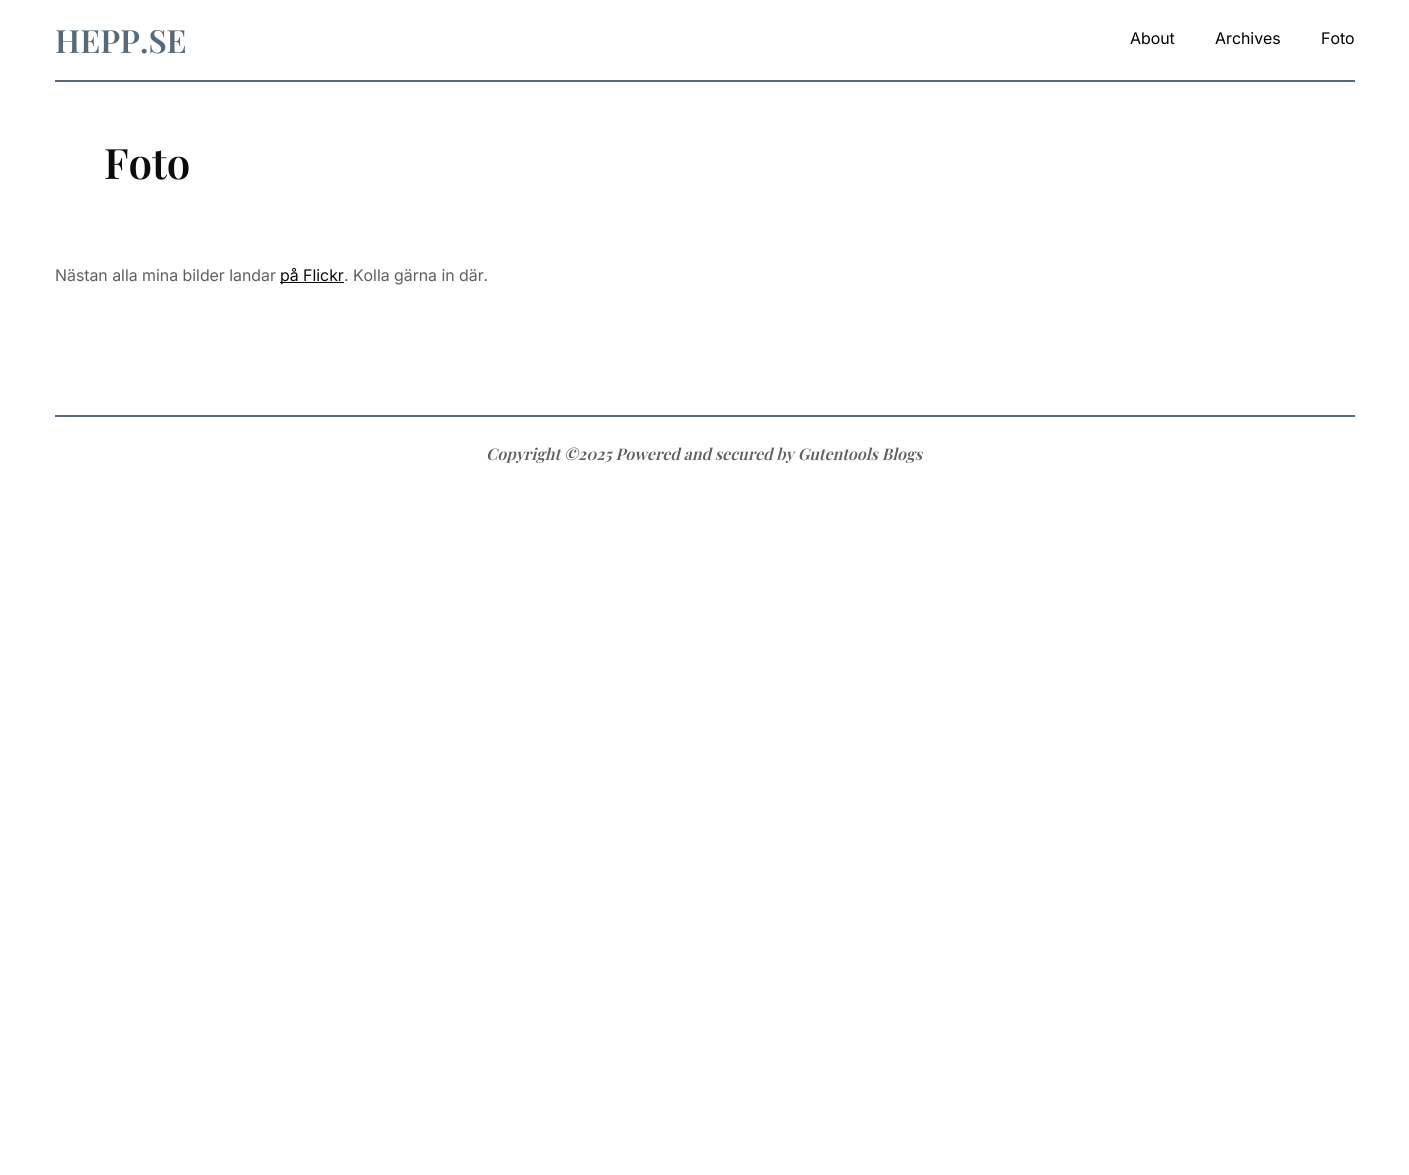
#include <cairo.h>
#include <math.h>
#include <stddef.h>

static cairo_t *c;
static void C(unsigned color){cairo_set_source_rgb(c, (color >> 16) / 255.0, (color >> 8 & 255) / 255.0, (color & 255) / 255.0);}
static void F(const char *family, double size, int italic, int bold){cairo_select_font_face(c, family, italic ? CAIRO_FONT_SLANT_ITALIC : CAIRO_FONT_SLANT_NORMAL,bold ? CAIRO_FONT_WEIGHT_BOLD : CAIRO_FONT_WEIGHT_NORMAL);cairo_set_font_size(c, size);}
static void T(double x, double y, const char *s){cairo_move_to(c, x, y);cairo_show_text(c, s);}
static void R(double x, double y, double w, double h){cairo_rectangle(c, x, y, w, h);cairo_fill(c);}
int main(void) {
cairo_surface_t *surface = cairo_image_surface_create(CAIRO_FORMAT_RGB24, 1409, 1175);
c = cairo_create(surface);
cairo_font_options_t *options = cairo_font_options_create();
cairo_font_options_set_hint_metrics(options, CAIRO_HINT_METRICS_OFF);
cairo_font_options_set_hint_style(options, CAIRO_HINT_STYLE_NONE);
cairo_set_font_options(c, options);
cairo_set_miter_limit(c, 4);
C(0xffffff);
cairo_paint(c);
C(0x576a7a);
R(55,80,1300,2);
F("Playfair Display SemiBold",32,0,0);
T(55,53,"HEPP.SE");
F("Inter",16,0,0);
C(0x000000);
T(1130,44,"About");
T(1215,44,"Archives");
T(1321,44,"Foto");
F("Playfair Display SemiBold",42,0,0);
C(0x0c0c0c);
T(104,179,"Foto");
F("Inter",16,0,0);
C(0x5f5f5f);
T(55,281,"Nästan alla mina bilder landar");
C(0x0c0c0c);
R(280,282,64,1);
T(280,281,"på Flickr");
C(0x5f5f5f);
T(344,281,". Kolla gärna in där.");
C(0x576a7a);
R(55,415,1300,2);
F("Playfair Display SemiBold",16,1,0);
C(0x5f5f5f);
T(486,460,"Copyright ©2025 Powered and secured by Gutentools Blogs");
cairo_surface_write_to_png(surface, "o.png");
cairo_font_options_destroy(options);
cairo_destroy(c);
cairo_surface_destroy(surface);
return 0;
}
